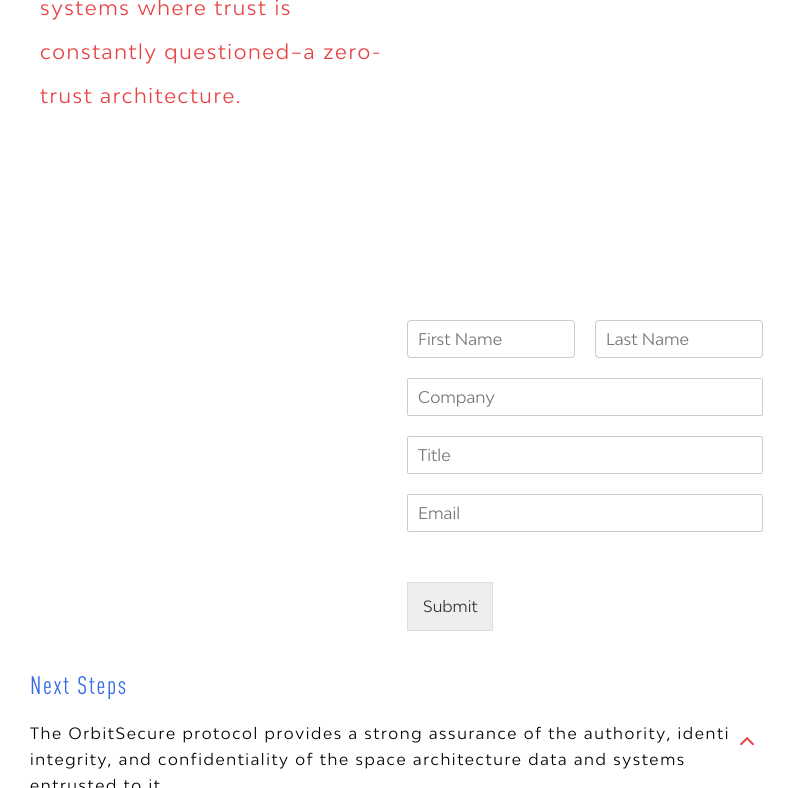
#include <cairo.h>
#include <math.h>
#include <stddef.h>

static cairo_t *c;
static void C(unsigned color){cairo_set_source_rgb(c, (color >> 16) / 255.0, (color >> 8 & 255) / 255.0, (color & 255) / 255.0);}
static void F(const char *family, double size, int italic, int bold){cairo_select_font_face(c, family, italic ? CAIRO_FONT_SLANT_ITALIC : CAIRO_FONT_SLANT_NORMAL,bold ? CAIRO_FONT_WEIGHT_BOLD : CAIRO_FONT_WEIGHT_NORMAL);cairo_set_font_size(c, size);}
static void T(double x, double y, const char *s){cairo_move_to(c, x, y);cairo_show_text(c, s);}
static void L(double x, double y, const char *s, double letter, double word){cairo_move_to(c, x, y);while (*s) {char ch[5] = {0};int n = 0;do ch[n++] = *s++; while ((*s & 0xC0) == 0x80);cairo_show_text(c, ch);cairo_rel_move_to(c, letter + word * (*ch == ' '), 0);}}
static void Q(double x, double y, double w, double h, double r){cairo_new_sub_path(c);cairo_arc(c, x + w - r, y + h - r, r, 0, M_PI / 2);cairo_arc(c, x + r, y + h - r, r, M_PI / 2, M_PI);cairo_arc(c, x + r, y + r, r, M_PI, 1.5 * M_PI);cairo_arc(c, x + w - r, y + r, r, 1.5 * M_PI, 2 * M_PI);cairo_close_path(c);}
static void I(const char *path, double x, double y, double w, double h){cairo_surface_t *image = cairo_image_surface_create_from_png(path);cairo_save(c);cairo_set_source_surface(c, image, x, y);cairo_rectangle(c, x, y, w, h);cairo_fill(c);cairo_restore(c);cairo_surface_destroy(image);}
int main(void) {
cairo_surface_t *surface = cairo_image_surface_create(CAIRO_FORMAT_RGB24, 793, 788);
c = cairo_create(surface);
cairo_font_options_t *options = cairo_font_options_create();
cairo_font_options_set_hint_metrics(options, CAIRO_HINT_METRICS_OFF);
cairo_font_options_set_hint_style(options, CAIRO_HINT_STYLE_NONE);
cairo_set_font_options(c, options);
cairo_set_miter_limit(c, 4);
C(0xffffff);
cairo_paint(c);
F("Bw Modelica",20,0,0);
C(0xe84143);
L(40,15,"systems where trust is",1.6,0);
L(40,59,"constantly questioned–a zero-",1.6,0);
L(40,103,"trust architecture.",1.6,0);
Q(407.5,320.5,167,37,3.5);
C(0xcccccc);
cairo_set_line_width(c,1);
cairo_stroke(c);
F("Bw Modelica",16,0,0);
C(0x757575);
T(418,345,"First Name");
Q(595.5,320.5,167,37,3.5);
C(0xcccccc);
cairo_stroke(c);
C(0x757575);
T(606,345,"Last Name");
Q(407.5,378.5,355,37,1.5);
C(0xcccccc);
cairo_stroke(c);
C(0x757575);
T(418,403,"Company");
Q(407.5,436.5,355,37,1.5);
C(0xcccccc);
cairo_stroke(c);
C(0x757575);
T(418,461,"Title");
Q(407.5,494.5,355,37,1.5);
C(0xcccccc);
cairo_stroke(c);
C(0x757575);
T(418,519,"Email");
C(0xeeeeee);
cairo_rectangle(c,407.5,582.5,85,48);
cairo_fill_preserve(c);
C(0xdddddd);
cairo_stroke(c);
F("Bw Modelica",15.5,0,0);
C(0x333333);
T(423,612,"Submit");
F("DIN",25,0,0);
C(0x3569e5);
L(30,694,"Next Steps",1.6,0);
F("Bw Modelica",15.5,0,0);
C(0x000000);
L(30,739,"The OrbitSecure protocol provides a strong assurance of the authority, identi",1.6,0);
L(30,765,"integrity, and confidentiality of the space architecture data and systems",1.6,0);
L(30,791,"entrusted to it",1.6,0);
I("1.png",740,737,15,9);
cairo_surface_write_to_png(surface, "o.png");
cairo_font_options_destroy(options);
cairo_destroy(c);
cairo_surface_destroy(surface);
return 0;
}
